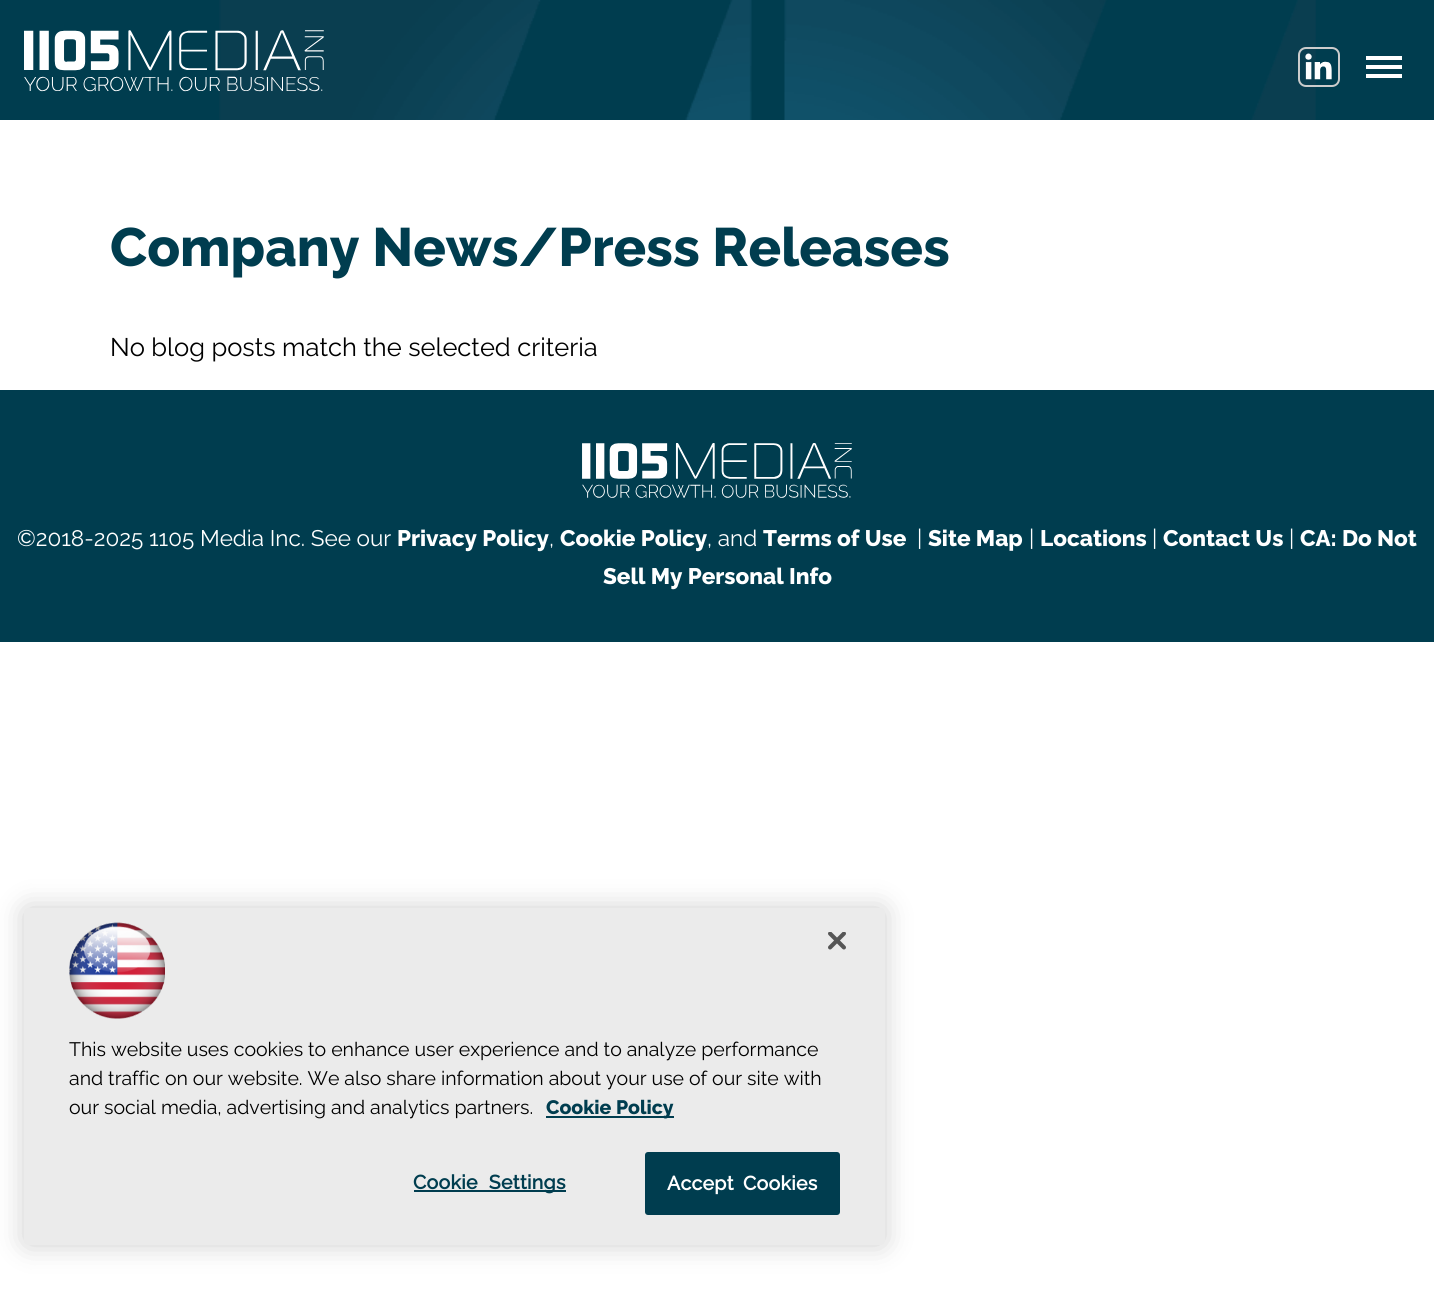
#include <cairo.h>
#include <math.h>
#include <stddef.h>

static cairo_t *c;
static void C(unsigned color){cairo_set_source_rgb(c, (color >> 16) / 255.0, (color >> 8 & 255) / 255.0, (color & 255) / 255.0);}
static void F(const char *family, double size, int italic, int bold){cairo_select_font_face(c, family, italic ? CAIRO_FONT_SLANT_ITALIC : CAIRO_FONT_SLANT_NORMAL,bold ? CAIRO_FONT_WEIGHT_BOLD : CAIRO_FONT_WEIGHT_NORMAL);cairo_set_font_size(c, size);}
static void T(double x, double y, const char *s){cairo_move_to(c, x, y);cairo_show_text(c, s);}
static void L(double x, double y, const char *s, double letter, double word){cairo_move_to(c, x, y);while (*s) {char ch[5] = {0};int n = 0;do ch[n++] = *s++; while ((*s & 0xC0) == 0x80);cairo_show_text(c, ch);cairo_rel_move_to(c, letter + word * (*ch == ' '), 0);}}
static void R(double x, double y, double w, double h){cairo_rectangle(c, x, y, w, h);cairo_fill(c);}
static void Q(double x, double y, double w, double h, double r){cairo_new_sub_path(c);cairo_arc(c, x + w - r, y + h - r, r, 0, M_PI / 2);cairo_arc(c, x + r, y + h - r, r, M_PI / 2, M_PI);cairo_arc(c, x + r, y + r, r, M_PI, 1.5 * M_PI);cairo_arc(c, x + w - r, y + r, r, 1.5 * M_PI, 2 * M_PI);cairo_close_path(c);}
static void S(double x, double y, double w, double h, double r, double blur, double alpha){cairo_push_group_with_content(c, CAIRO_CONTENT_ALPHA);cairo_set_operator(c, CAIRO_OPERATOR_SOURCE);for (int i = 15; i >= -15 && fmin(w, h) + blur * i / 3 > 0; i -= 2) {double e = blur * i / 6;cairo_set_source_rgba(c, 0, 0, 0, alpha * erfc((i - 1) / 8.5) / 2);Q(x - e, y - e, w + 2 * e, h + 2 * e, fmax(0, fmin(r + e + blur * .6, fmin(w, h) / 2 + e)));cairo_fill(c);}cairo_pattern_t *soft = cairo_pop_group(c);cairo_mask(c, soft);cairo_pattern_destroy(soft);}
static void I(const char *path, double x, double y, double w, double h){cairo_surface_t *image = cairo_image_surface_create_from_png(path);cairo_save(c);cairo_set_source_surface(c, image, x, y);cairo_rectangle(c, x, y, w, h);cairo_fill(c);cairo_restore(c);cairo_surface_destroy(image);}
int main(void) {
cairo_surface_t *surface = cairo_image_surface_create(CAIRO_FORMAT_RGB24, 1434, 1292);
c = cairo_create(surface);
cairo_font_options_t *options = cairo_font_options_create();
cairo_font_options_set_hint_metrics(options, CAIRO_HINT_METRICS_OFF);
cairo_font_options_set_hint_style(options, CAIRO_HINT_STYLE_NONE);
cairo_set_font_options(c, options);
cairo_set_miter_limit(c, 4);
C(0xffffff);
cairo_paint(c);
C(0x003d4f);
R(0,0,1434,120);
I("1.png",219,0,1097,120);
I("2.png",24,30,300,62);
Q(1299,48,40,38,7);
C(0xcccccc);
cairo_stroke(c);
I("3.png",1305,53,27,27);
C(0xffffff);
R(1366,56,36,4);
R(1366,65,36,4);
R(1366,74,36,4);
F("Raleway ExtraBold",54,0,0);
C(0x003d4f);
T(110,266,"Company News/Press Releases");
F("Raleway",25.5,0,0);
C(0x000000);
T(110,356,"No blog posts match the selected criteria");
C(0x003d4f);
R(0,390,1434,252);
I("4.png",582,443,270,55);
F("Raleway",22.5,0,0);
C(0xffffff);
T(17,546,"©2018-2025 1105 Media Inc. See our");
F("Raleway ExtraBold",22.5,0,0);
T(397,546,"Privacy Policy");
F("Raleway",22.5,0,0);
T(549,546,",");
F("Raleway ExtraBold",22.5,0,0);
T(560,546,"Cookie Policy");
F("Raleway",22.5,0,0);
T(707,546,", and");
F("Raleway ExtraBold",22.5,0,0);
T(763,546,"Terms of Use");
F("Raleway",22.5,0,0);
T(917,546,"|");
F("Raleway ExtraBold",22.5,0,0);
T(928,546,"Site Map");
F("Raleway",22.5,0,0);
T(1029,546,"|");
F("Raleway ExtraBold",22.5,0,0);
T(1040,546,"Locations");
F("Raleway",22.5,0,0);
T(1152,546,"|");
F("Raleway ExtraBold",22.5,0,0);
T(1163,546,"Contact Us");
F("Raleway",22.5,0,0);
T(1289,546,"|");
F("Raleway ExtraBold",22.5,0,0);
T(1300,546,"CA: Do Not");
T(603,584,"Sell My Personal Info");
C(0x000000);
S(24,908,861,337,4,13.5,.2);
C(0xebebeb);
Q(24,908,861,337,4);
cairo_fill(c);
I("5.png",828,932,18,18);
I("6.png",69,922,96,97);
F("Raleway",19.5,0,0);
C(0x000000);
T(69,1056,"This website uses cookies to enhance user experience and to analyze performance");
T(69,1085,"and traffic on our website. We also share information about your use of our site with");
T(69,1114,"our social media, advertising and analytics partners.");
C(0x003d4f);
R(546,1116,128,2);
F("Raleway ExtraBold",19.5,0,0);
T(546,1114,"Cookie Policy");
R(414,1190,152,2);
F("Raleway",19.5,0,1);
L(413,1189,"Cookie Settings",.25,6);
Q(646,1153,193,61,2);
cairo_fill_preserve(c);
cairo_stroke(c);
C(0xffffff);
L(667,1190,"Accept Cookies",.25,4);
cairo_surface_write_to_png(surface, "o.png");
cairo_font_options_destroy(options);
cairo_destroy(c);
cairo_surface_destroy(surface);
return 0;
}
